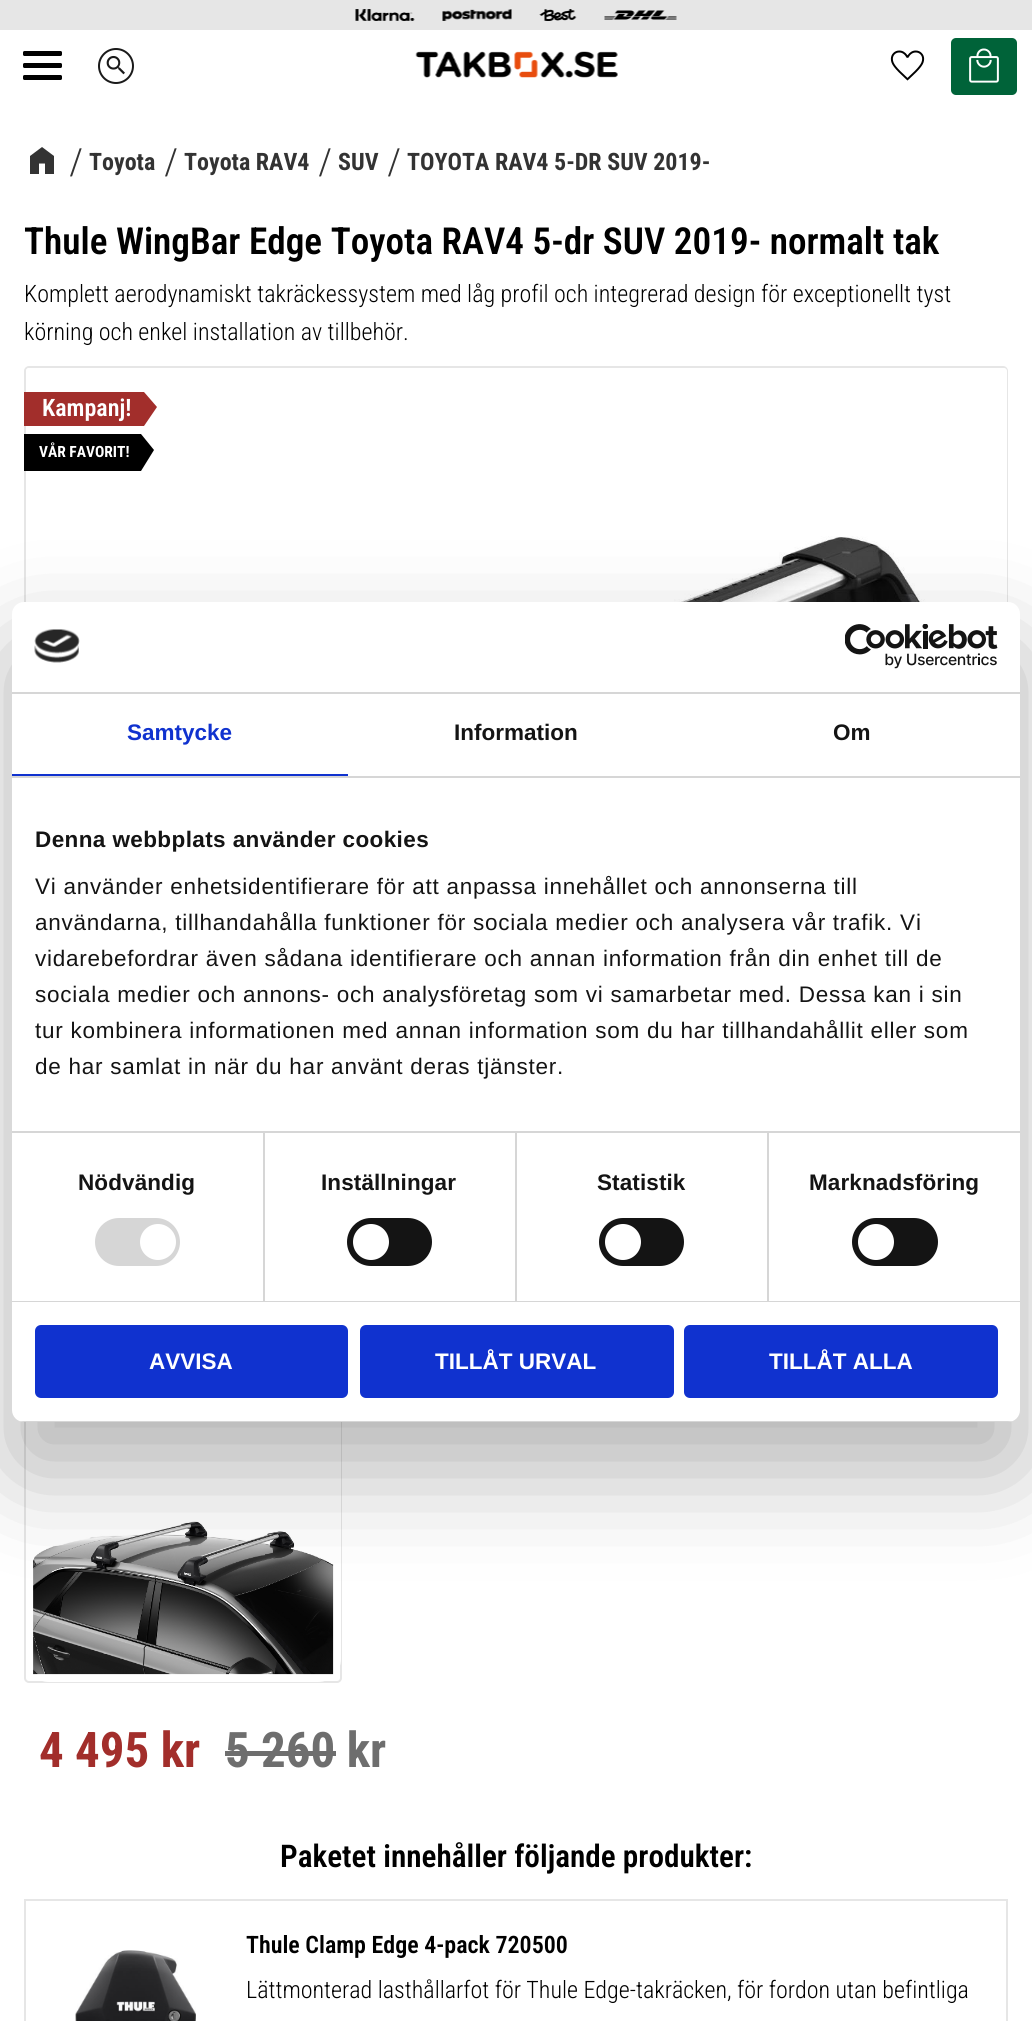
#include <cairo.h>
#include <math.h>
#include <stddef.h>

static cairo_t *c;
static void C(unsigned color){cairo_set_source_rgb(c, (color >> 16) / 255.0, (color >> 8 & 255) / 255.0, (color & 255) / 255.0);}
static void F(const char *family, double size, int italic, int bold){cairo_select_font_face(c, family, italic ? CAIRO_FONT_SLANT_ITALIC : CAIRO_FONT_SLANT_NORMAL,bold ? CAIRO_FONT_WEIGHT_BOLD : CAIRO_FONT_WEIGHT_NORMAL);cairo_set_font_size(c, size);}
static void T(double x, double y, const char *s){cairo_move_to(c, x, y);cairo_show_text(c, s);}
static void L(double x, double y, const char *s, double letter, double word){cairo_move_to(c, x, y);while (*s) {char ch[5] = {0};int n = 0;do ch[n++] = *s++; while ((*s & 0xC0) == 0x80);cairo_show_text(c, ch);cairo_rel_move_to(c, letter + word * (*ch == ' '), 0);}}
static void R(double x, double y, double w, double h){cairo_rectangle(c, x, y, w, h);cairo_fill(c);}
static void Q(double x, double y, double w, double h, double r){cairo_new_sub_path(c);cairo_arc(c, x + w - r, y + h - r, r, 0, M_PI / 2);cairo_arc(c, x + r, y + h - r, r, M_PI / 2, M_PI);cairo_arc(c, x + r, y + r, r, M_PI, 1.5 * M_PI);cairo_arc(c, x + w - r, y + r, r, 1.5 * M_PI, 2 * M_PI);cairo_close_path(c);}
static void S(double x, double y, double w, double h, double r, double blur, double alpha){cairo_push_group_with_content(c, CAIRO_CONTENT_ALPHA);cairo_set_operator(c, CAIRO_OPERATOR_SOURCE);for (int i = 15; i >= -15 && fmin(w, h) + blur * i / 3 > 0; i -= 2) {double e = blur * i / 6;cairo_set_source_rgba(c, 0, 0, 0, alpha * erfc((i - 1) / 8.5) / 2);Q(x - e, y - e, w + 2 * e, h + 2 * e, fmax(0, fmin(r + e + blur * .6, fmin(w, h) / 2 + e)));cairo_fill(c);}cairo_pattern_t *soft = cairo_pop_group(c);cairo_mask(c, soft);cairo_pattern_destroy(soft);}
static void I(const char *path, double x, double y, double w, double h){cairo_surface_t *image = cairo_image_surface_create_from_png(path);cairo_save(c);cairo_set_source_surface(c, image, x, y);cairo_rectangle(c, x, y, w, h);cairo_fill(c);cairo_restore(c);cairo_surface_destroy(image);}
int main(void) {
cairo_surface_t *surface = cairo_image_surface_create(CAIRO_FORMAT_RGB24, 1032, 2021);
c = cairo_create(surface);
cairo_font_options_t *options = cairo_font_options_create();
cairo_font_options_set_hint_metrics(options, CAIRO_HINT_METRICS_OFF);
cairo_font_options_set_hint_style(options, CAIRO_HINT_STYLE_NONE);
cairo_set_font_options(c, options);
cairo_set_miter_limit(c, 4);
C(0xffffff);
cairo_paint(c);
C(0xe6e6e6);
R(0,0,1032,30);
I("1.png",355,9,60,12);
I("2.png",442,9,70,12);
I("3.png",539,9,38,12);
I("4.png",604,10,73,10);
cairo_arc(c,116,66,17,0,2 * M_PI);
C(0x1a1a1a);
cairo_stroke(c);
I("5.png",106,55,19,20);
I("6.png",415,51,203,27);
I("7.png",890,50,35,31);
C(0x006339);
Q(951,38,66,57,5);
cairo_fill(c);
I("8.png",969,48,30,35);
C(0x000000);
Q(23,63,39,5,1.5);
cairo_fill(c);
Q(23,51,39,5,1.5);
cairo_fill(c);
Q(23,75,39,5,1.5);
cairo_fill(c);
C(0x333333);
cairo_new_path(c);
cairo_move_to(c,30,174);
cairo_line_to(c,30,156);
cairo_line_to(c,42,147);
cairo_line_to(c,54,156);
cairo_line_to(c,54,174);
cairo_line_to(c,45,174);
cairo_line_to(c,45,163.5);
cairo_line_to(c,39,163.5);
cairo_line_to(c,39,174);
cairo_close_path(c);
cairo_fill(c);
F("Liberation Serif",42,0,0);
T(70,176,"/");
F("Roboto Condensed",24,0,1);
T(89,170,"Toyota");
F("Liberation Serif",42,0,0);
T(165,176,"/");
F("Roboto Condensed",24,0,1);
T(184,170,"Toyota RAV4");
F("Liberation Serif",42,0,0);
T(319,176,"/");
F("Roboto Condensed",24,0,1);
T(338,170,"SUV");
F("Liberation Serif",42,0,0);
T(388,176,"/");
F("Roboto Condensed",24,0,1);
T(407,170,"TOYOTA RAV4 5-DR SUV 2019-");
F("Roboto Condensed SemiBold",37.2,0,0);
C(0x000000);
T(24,254,"Thule WingBar Edge Toyota RAV4 5-dr SUV 2019- normalt tak");
F("Roboto Condensed Light",24,0,0);
T(24,302,"Komplett aerodynamiskt takräckessystem med låg profil och integrerad design för exceptionellt tyst");
T(24,340,"körning och enkel installation av tillbehör.");
Q(25,367,982,982,4);
C(0xe6e6e6);
cairo_stroke(c);
C(0xffffff);
Q(26,368,981,981,3);
cairo_fill(c);
I("9.png",31,536,973,66);
C(0xa22e2b);
cairo_new_path(c);
cairo_move_to(c,144,392);
cairo_line_to(c,24,392);
cairo_line_to(c,24,426);
cairo_line_to(c,144,426);
cairo_line_to(c,157,407);
cairo_close_path(c);
cairo_fill(c);
F("Roboto Condensed SemiBold",24,0,0);
C(0xffffff);
T(42,416,"Kampanj!");
C(0x000000);
cairo_new_path(c);
cairo_move_to(c,141,434);
cairo_line_to(c,24,434);
cairo_line_to(c,24,471);
cairo_line_to(c,141,471);
cairo_line_to(c,154,450);
cairo_close_path(c);
cairo_fill(c);
F("Roboto Condensed",15.5,0,1);
C(0xffffff);
T(39,457,"VÅR FAVORIT!");
Q(25,1366,316,316,4);
C(0xe6e6e6);
cairo_stroke(c);
C(0xffffff);
Q(26,1367,315,315,23);
cairo_fill(c);
I("10.png",33,1521,301,154);
F("Roboto Condensed",49,0,1);
C(0xa22e2b);
T(39,1767,"4 495 kr");
C(0x6e6e6e);
T(225,1767,"5 260 kr");
R(225,1751,111,5);
F("Roboto Condensed SemiBold",31.25,0,0);
C(0x000000);
T(280,1867,"Paketet innehåller följande produkter:");
cairo_rectangle(c,25,1900,982,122);
C(0xe6e6e6);
cairo_stroke(c);
I("11.png",75,1950,121,71);
F("Roboto Condensed SemiBold",24,0,0);
C(0x000000);
T(246,1953,"Thule Clamp Edge 4-pack 720500");
F("Roboto Condensed Light",24,0,0);
T(246,1998,"Lättmonterad lasthållarfot för Thule Edge-takräcken, för fordon utan befintliga");
C(0x000000);
S(12,650,1008,820,12,51,.3);
C(0xffffff);
Q(12,602,1008,820,12);
cairo_fill(c);
C(0xd6d6d6);
R(12,692,1008,2);
I("12.png",34,629,46,34);
I("13.png",845,624,153,45);
R(12,776,1008,2);
C(0x1032cf);
R(12,774,336,2);
F("Liberation Sans",22.5,0,1);
T(127,740,"Samtycke");
C(0x141414);
T(454,740,"Information");
T(833,740,"Om");
C(0xd6d6d6);
R(12,1131,1008,2);
C(0x141414);
L(35,847,"Denna webbplats använder cookies",.4,0);
F("Liberation Sans",22.5,0,0);
L(35,894,"Vi använder enhetsidentifierare för att anpassa innehållet och annonserna till",.75,0);
L(35,930,"användarna, tillhandahålla funktioner för sociala medier och analysera vår trafik. Vi",.75,0);
L(35,966,"vidarebefordrar även sådana identifierare och annan information från din enhet till de",.75,0);
L(35,1002,"sociala medier och annons- och analysföretag som vi samarbetar med. Dessa kan i sin",.75,0);
L(35,1038,"tur kombinera informationen med annan information som du har tillhandahållit eller som",.75,0);
L(35,1074,"de har samlat in när du har använt deras tjänster.",.75,0);
C(0xd6d6d6);
R(12,1301,1008,1);
R(263,1133,2,168);
F("Liberation Sans",22.5,0,1);
C(0x141414);
L(78,1190,"Nödvändig",.1,0);
C(0xd6d6d6);
Q(95,1218,85,48,24);
cairo_fill(c);
C(0xffffff);
cairo_arc(c,158,1242,18,0,2 * M_PI);
cairo_fill(c);
C(0xd6d6d6);
R(515,1133,2,168);
C(0x141414);
L(321,1190,"Inställningar",.1,0);
Q(347,1218,85,48,24);
cairo_fill(c);
C(0xffffff);
cairo_arc(c,371,1242,18,0,2 * M_PI);
cairo_fill(c);
C(0xd6d6d6);
R(767,1133,2,168);
C(0x141414);
L(597,1190,"Statistik",.1,0);
Q(599,1218,85,48,24);
cairo_fill(c);
C(0xffffff);
cairo_arc(c,623,1242,18,0,2 * M_PI);
cairo_fill(c);
C(0x141414);
L(809,1190,"Marknadsföring",.1,0);
Q(852,1218,86,48,24);
cairo_fill(c);
C(0xffffff);
cairo_arc(c,876,1242,18,0,2 * M_PI);
cairo_fill(c);
cairo_save(c);
Q(12,602,1008,820,12);
cairo_clip(c);
C(0xd6d6d6);
R(12,1421,1008,1);
cairo_restore(c);
C(0x1032cf);
Q(36.5,1326.5,310,70,4.5);
cairo_fill_preserve(c);
cairo_set_line_width(c,3);
cairo_stroke(c);
C(0xffffff);
T(149,1369,"AVVISA");
C(0x1032cf);
Q(361.5,1326.5,311,70,4.5);
cairo_fill_preserve(c);
cairo_stroke(c);
C(0xffffff);
T(435,1369,"TILLÅT URVAL");
C(0x1032cf);
Q(685.5,1326.5,311,70,4.5);
cairo_fill_preserve(c);
cairo_stroke(c);
C(0xffffff);
T(769,1369,"TILLÅT ALLA");
cairo_surface_write_to_png(surface, "o.png");
cairo_font_options_destroy(options);
cairo_destroy(c);
cairo_surface_destroy(surface);
return 0;
}
